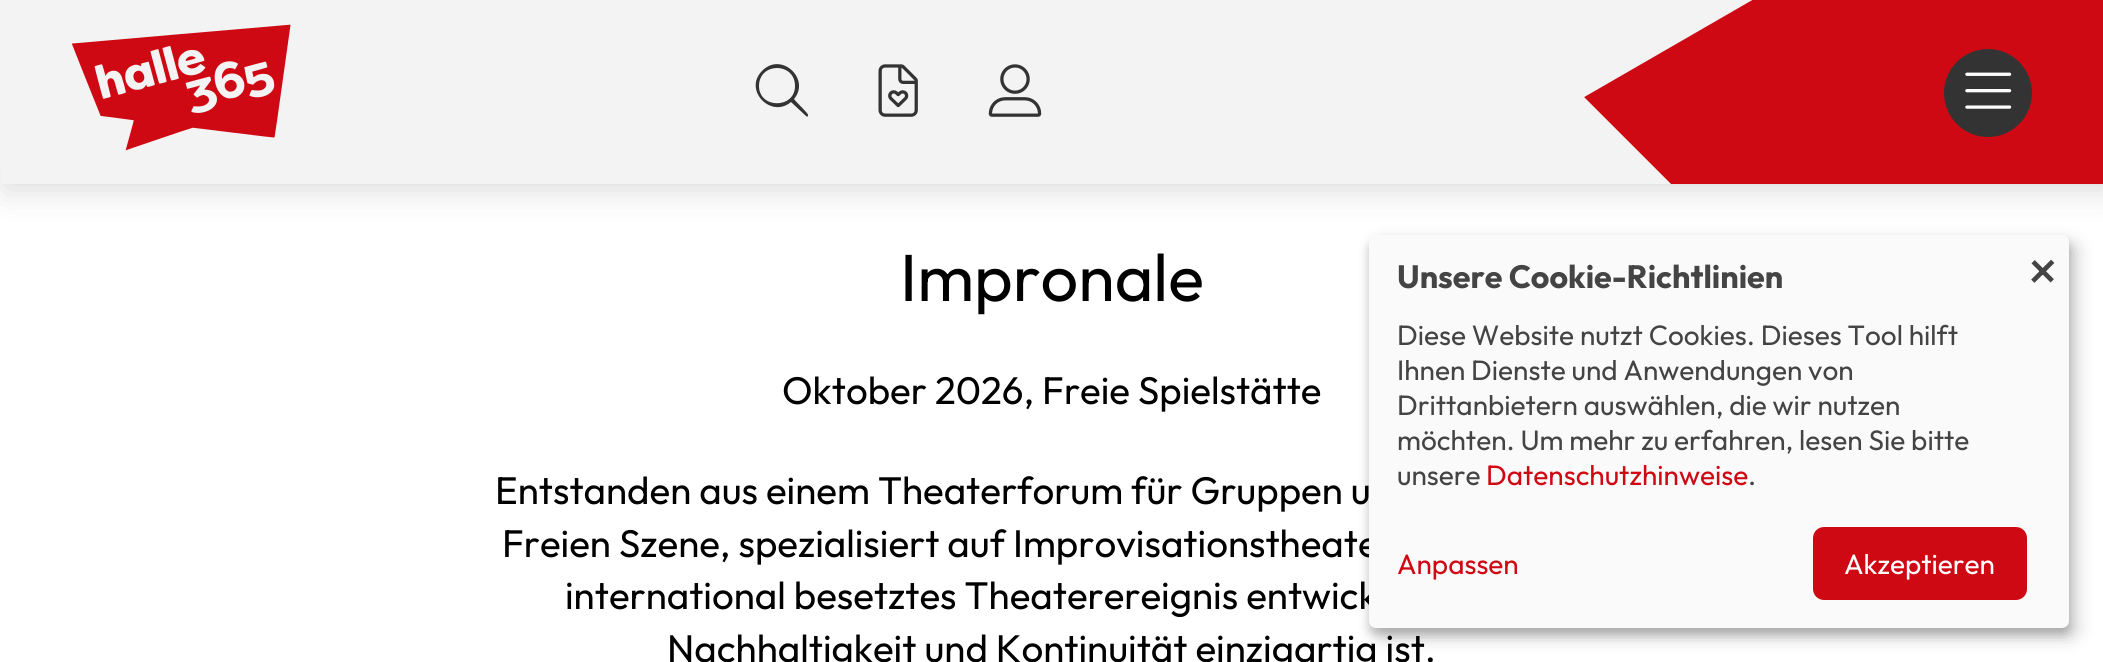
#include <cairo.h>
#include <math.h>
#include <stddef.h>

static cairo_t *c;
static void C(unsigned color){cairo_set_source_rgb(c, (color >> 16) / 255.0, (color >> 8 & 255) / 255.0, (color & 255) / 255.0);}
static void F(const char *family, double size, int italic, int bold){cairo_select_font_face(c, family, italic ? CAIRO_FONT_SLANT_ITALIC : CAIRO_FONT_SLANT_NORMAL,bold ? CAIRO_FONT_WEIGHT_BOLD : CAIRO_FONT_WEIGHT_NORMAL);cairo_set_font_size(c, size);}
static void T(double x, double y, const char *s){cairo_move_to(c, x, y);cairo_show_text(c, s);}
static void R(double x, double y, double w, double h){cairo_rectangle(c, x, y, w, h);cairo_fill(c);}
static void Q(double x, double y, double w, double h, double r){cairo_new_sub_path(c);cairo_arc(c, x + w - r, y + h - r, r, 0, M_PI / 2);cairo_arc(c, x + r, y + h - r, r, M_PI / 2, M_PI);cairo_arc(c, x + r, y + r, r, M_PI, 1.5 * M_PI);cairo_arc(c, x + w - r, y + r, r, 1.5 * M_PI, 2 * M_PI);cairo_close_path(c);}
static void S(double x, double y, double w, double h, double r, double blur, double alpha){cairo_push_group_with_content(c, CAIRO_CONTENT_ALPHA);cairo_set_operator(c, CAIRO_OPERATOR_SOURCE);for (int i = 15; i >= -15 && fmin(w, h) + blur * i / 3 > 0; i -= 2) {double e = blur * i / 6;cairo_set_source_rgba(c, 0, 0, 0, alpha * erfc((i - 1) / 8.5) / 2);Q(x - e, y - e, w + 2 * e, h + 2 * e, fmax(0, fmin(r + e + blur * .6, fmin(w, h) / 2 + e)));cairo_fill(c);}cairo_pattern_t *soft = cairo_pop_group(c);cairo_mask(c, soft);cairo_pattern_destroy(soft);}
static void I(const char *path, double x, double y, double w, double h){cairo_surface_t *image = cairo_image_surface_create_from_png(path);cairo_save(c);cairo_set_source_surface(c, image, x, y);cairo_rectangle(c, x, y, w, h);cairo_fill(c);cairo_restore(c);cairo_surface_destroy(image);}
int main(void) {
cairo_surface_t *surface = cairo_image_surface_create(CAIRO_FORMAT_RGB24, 2103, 662);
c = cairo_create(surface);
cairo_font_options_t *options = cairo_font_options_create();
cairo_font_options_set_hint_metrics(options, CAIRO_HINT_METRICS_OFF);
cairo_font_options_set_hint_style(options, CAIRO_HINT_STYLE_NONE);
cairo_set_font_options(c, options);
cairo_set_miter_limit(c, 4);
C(0xffffff);
cairo_paint(c);
C(0x000000);
S(5,5,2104,184,0,17.5,.15);
C(0xf3f3f3);
R(0,0,2,166);
C(0xcf0913);
R(1584,0,519,184);
cairo_save(c);
cairo_rectangle(c,2,0,2100,184);
cairo_clip(c);
C(0xf3f3f3);
cairo_new_path(c);
cairo_move_to(c,497,-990);
cairo_line_to(c,1982,495);
cairo_line_to(c,497,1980);
cairo_line_to(c,-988,495);
cairo_close_path(c);
cairo_fill(c);
cairo_new_path(c);
cairo_move_to(c,136,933);
cairo_line_to(c,-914,-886);
cairo_line_to(c,905,-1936);
cairo_line_to(c,1955,-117);
cairo_close_path(c);
cairo_fill(c);
cairo_restore(c);
I("1.png",72,24,219,127);
C(0x333333);
cairo_new_path(c);
cairo_move_to(c,795,86);
cairo_curve_to(c,795,62,759,62,759,86);
cairo_curve_to(c,759,109,795,109,795,86);
cairo_close_path(c);
cairo_move_to(c,791,102);
cairo_curve_to(c,771,119,743,90,762,71);
cairo_curve_to(c,781,51,811,79,794,99);
cairo_curve_to(c,795,101,809,114,808,115);
cairo_curve_to(c,808,117,807,117,806,116);
cairo_close_path(c);
cairo_fill(c);
I("2.png",878,64,40,53);
I("3.png",988,64,54,53);
cairo_arc(c,1988,93,44,0,2 * M_PI);
cairo_fill(c);
I("4.png",1965,72,47,37);
F("Outfit Thin",66.5,0,0);
C(0x000000);
T(900,301,"Impronale");
F("Outfit Thin",38.5,0,0);
T(782,404,"Oktober 2026, Freie Spielstätte");
T(495,504,"Entstanden aus einem Theaterforum für Gruppen u");
T(502,557,"Freien Szene, spezialisiert auf Improvisationstheate");
T(565,609,"international besetztes Theaterereignis entwick");
T(667,662,"Nachhaltigkeit und Kontinuität einzigartig ist.");
C(0x000000);
S(1377,243,700,394,7,9,.19);
S(1369,242,700,393,7,5,.2);
C(0xfafafa);
Q(1369,235,700,393,7);
cairo_fill(c);
F("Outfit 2 Thin",32.25,0,0);
C(0x444444);
T(1397,288,"Unsere Cookie-Richtlinien");
F("Outfit Thin",28,0,0);
T(1397,345,"Diese Website nutzt Cookies. Dieses Tool hilft");
T(1397,380,"Ihnen Dienste und Anwendungen von");
T(1397,415,"Drittanbietern auswählen, die wir nutzen");
T(1397,450,"möchten. Um mehr zu erfahren, lesen Sie bitte");
T(1397,485,"unsere");
C(0xcf0913);
T(1486,485,"Datenschutzhinweise");
C(0x444444);
T(1748,485,".");
C(0xcf0913);
T(1397,574,"Anpassen");
Q(1815.5,529.5,209,68,8.5);
cairo_fill_preserve(c);
cairo_set_line_width(c,5);
cairo_stroke(c);
C(0xffffff);
T(1844,574,"Akzeptieren");
F("Outfit Thin",56,0,0);
C(0x444444);
T(2028,290,"×");
cairo_surface_write_to_png(surface, "o.png");
cairo_font_options_destroy(options);
cairo_destroy(c);
cairo_surface_destroy(surface);
return 0;
}
